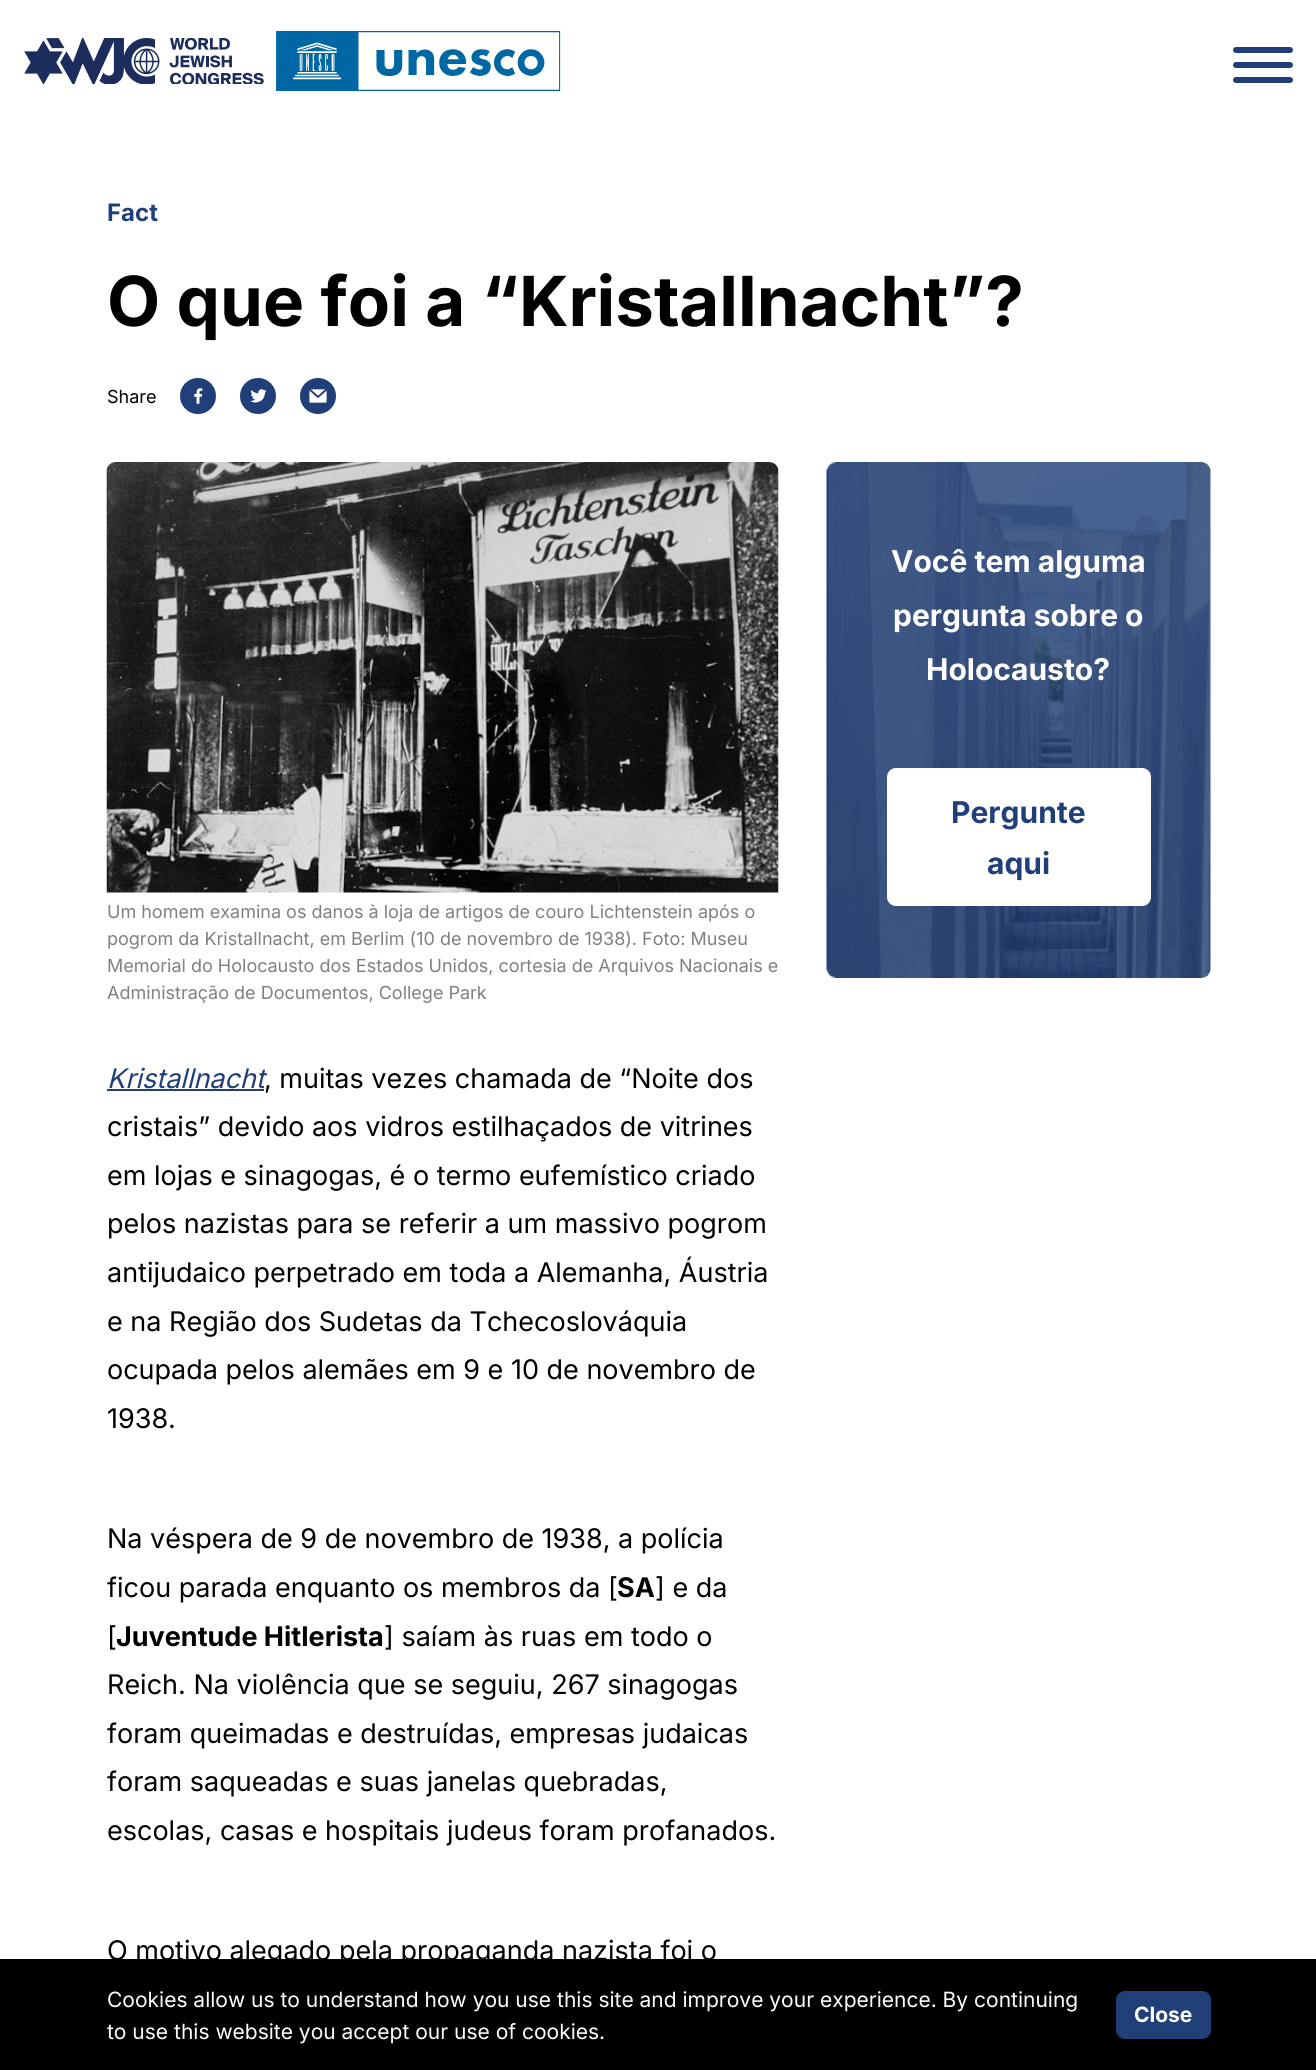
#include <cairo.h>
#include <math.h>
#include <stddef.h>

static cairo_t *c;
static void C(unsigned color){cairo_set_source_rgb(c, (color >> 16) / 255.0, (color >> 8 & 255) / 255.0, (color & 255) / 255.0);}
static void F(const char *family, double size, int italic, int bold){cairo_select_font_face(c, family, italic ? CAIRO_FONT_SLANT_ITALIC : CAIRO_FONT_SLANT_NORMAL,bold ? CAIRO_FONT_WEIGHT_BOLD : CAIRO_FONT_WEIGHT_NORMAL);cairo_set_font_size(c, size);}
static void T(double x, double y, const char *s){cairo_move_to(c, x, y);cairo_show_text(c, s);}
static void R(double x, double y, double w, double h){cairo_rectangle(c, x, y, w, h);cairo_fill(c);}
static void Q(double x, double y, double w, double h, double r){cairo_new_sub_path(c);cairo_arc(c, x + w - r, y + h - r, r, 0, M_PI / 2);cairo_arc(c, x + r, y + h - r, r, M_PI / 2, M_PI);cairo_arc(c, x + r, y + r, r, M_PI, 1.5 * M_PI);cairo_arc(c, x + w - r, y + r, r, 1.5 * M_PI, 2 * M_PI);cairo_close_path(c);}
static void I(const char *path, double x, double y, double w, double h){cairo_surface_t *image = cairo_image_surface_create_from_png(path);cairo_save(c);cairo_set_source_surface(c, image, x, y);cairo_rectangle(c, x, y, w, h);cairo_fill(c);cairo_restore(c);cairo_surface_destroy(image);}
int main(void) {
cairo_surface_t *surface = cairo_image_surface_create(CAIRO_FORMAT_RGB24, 1316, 2070);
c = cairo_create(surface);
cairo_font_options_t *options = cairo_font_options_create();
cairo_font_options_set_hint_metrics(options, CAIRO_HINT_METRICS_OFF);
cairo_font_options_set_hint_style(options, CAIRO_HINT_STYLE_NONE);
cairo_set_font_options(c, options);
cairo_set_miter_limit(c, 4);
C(0xffffff);
cairo_paint(c);
I("1.png",24,38,240,46);
I("2.png",276,31,285,60);
C(0x203f78);
Q(1233,47,60,6,3);
cairo_fill(c);
Q(1233,62,60,6,3);
cairo_fill(c);
Q(1233,77,60,6,3);
cairo_fill(c);
F("Inter",24,0,1);
T(107,221,"Fact");
F("Inter",69,0,1);
C(0x000000);
T(107,326,"O que foi a “Kristallnacht”?");
F("Inter",18,0,0);
T(107,403,"Share");
I("3.png",180,378,36,36);
I("4.png",240,378,36,36);
I("5.png",300,378,36,36);
I("6.png",826,462,385,516);
F("Inter",30,0,1);
C(0xffffff);
T(891,572,"Você tem alguma");
T(893,626,"pergunta sobre o");
T(926,680,"Holocausto?");
Q(887,768,264,138,9);
cairo_fill(c);
C(0x203f78);
T(951,823,"Pergunte");
T(987,874,"aqui");
I("7.png",106,462,673,431);
F("Inter",18,0,0);
C(0x808080);
T(107,918,"Um homem examina os danos à loja de artigos de couro Lichtenstein após o");
T(107,945,"pogrom da Kristallnacht, em Berlim (10 de novembro de 1938). Foto: Museu");
T(107,972,"Memorial do Holocausto dos Estados Unidos, cortesia de Arquivos Nacionais e");
T(107,999,"Administração de Documentos, College Park");
F("Inter",27,1,0);
C(0x203f78);
T(107,1088,"Kristallnacht");
R(107,1089,157,2);
F("Inter",27,0,0);
C(0x000000);
T(264,1088,", muitas vezes chamada de “Noite dos");
T(107,1136,"cristais” devido aos vidros estilhaçados de vitrines");
T(107,1185,"em lojas e sinagogas, é o termo eufemístico criado");
T(107,1233,"pelos nazistas para se referir a um massivo pogrom");
T(107,1282,"antijudaico perpetrado em toda a Alemanha, Áustria");
T(107,1331,"e na Região dos Sudetas da Tchecoslováquia");
T(107,1379,"ocupada pelos alemães em 9 e 10 de novembro de");
T(107,1428,"1938.");
T(107,1548,"Na véspera de 9 de novembro de 1938, a polícia");
T(107,1597,"ficou parada enquanto os membros da [");
F("Inter",27,0,1);
T(617,1597,"SA");
F("Inter",27,0,0);
T(655,1597,"] e da");
T(107,1646,"[");
F("Inter",27,0,1);
T(116,1646,"Juventude Hitlerista");
F("Inter",27,0,0);
T(384,1646,"] saíam às ruas em todo o");
T(107,1694,"Reich. Na violência que se seguiu, 267 sinagogas");
T(107,1743,"foram queimadas e destruídas, empresas judaicas");
T(107,1791,"foram saqueadas e suas janelas quebradas,");
T(107,1840,"escolas, casas e hospitais judeus foram profanados.");
T(107,1960,"O motivo alegado pela propaganda nazista foi o");
R(0,1959,1316,111);
F("Inter",21,0,0);
C(0xffffff);
T(107,2007,"Cookies allow us to understand how you use this site and improve your experience. By continuing");
T(107,2039,"to use this website you accept our use of cookies.");
C(0x203f78);
Q(1116,1991,95,48,9);
cairo_fill(c);
F("Inter",21,0,1);
C(0xffffff);
T(1134,2022,"Close");
cairo_surface_write_to_png(surface, "o.png");
cairo_font_options_destroy(options);
cairo_destroy(c);
cairo_surface_destroy(surface);
return 0;
}
